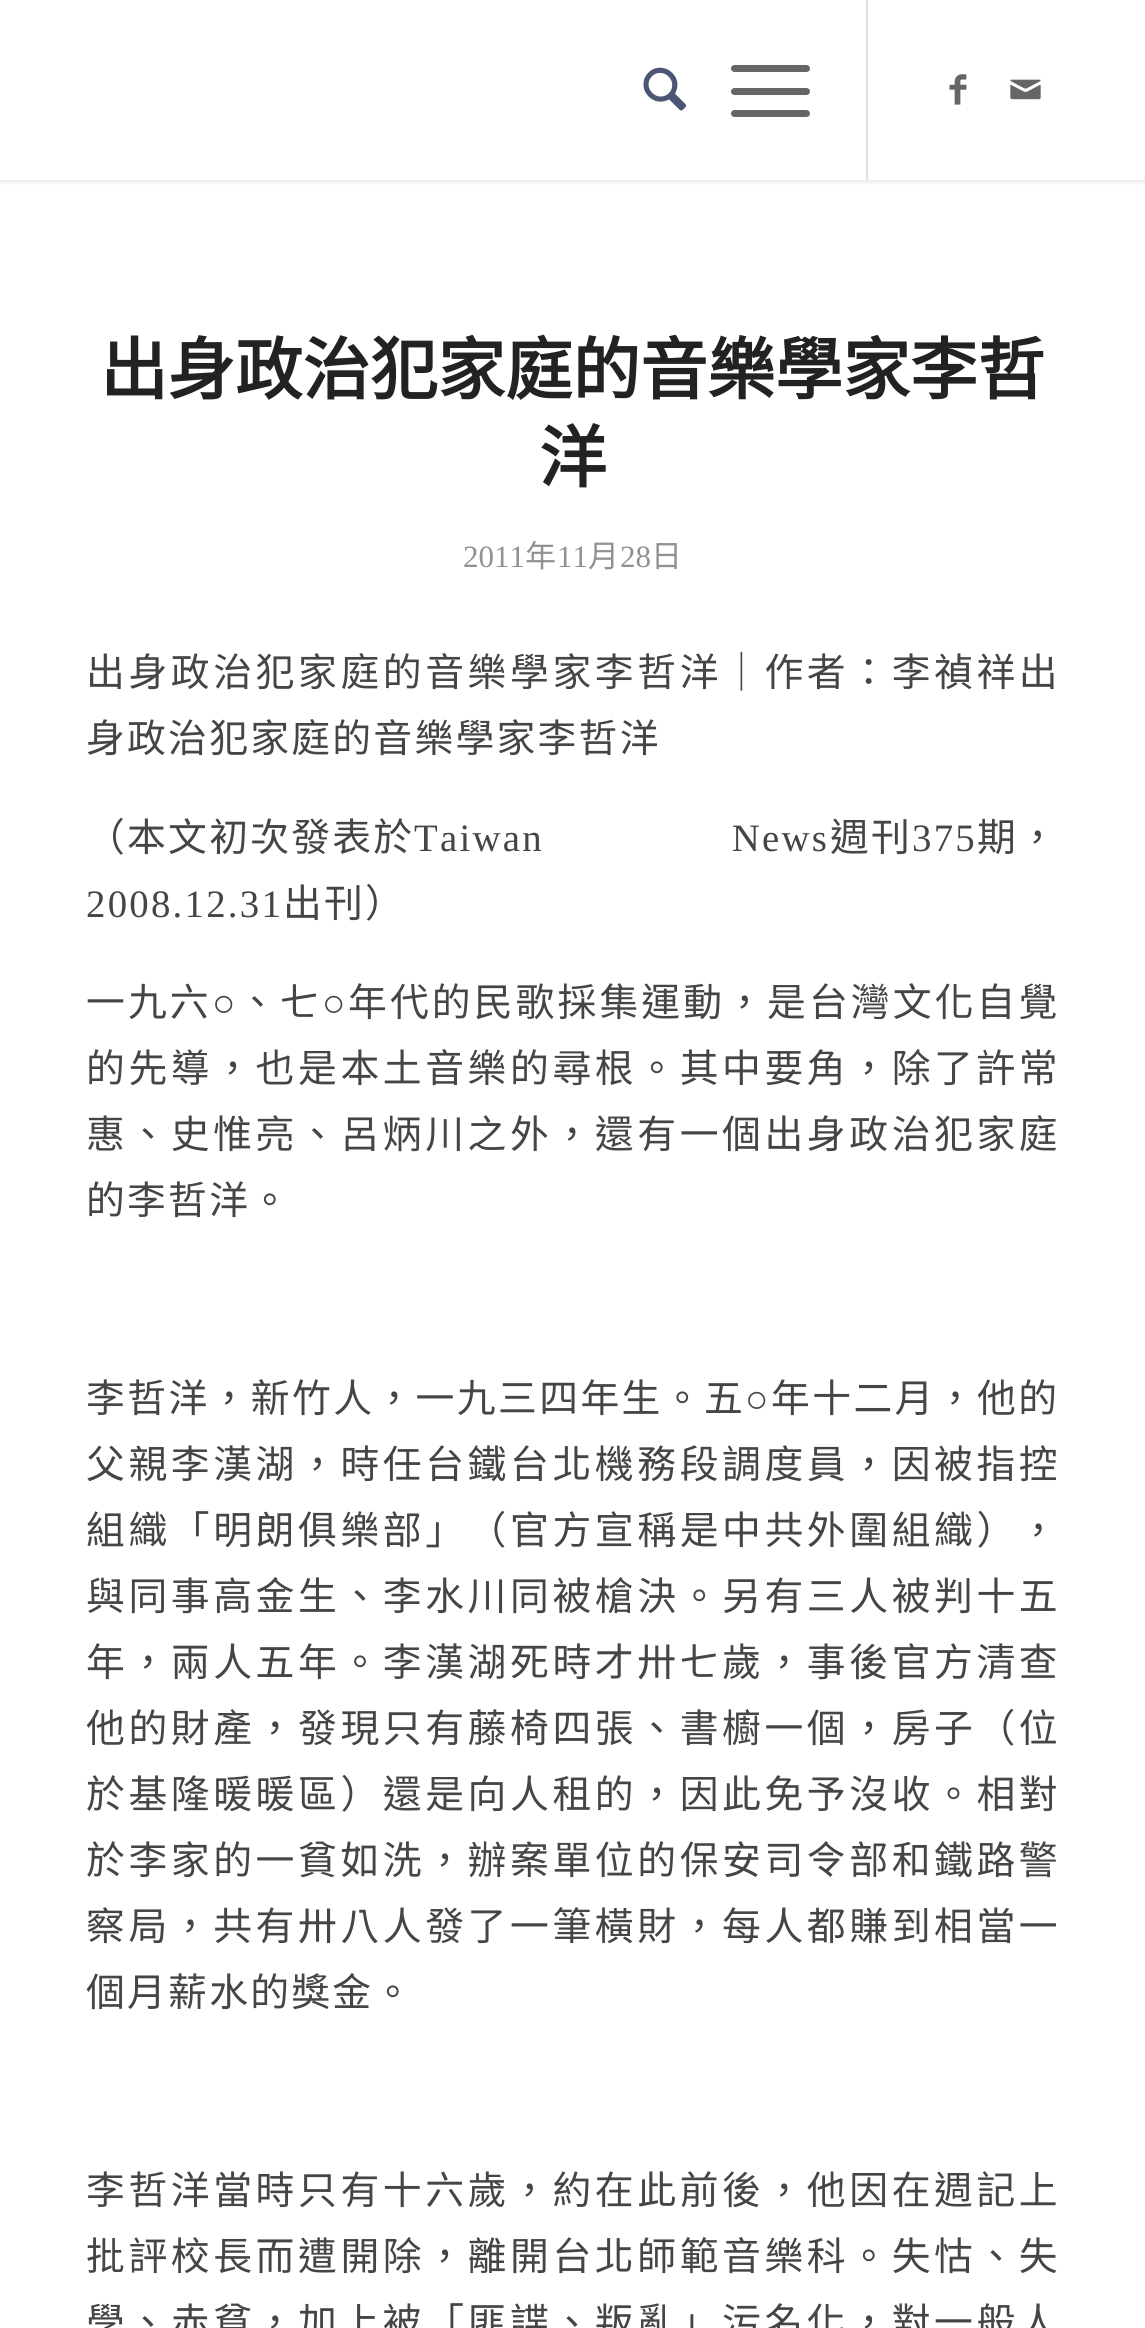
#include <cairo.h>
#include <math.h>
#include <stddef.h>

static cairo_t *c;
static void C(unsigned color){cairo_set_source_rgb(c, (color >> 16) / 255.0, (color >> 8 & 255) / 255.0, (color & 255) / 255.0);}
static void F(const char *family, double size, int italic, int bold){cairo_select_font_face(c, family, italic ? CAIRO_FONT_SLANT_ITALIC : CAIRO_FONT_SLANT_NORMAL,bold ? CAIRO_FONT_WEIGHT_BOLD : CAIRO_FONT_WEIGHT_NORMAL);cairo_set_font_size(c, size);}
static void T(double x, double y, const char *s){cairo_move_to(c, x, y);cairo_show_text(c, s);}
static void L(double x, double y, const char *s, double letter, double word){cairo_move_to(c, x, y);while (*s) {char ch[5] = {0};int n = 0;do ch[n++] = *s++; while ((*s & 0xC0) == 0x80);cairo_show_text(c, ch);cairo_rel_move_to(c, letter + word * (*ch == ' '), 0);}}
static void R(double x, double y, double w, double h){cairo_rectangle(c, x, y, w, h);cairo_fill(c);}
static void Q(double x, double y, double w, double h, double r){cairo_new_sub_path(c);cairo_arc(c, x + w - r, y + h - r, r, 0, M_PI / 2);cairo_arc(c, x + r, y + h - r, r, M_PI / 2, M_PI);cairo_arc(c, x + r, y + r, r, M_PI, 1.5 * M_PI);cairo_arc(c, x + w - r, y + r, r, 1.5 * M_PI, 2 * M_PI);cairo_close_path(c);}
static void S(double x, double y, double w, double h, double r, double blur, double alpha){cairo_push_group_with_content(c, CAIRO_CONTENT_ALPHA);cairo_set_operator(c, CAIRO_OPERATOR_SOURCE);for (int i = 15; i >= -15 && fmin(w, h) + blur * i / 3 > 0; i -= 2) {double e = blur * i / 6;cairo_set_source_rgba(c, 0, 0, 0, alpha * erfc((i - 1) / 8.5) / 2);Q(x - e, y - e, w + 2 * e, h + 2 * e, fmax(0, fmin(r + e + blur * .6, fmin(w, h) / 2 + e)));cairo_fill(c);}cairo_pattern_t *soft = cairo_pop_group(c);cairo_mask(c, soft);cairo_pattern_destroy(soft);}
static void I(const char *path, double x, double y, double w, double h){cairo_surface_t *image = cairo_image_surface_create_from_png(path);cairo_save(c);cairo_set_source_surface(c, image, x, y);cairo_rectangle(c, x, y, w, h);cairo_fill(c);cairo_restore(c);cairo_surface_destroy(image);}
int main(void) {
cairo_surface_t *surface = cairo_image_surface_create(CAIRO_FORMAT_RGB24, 1145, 2328);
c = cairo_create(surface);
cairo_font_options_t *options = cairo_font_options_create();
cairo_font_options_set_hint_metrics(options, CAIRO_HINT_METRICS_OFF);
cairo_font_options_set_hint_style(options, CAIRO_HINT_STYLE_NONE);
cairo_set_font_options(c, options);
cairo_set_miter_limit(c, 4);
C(0xffffff);
cairo_paint(c);
C(0x000000);
S(-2,-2,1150,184,0,2,.1);
C(0xffffff);
R(0,0,1145,180);
C(0xe1e1e1);
R(866,0,2,180);
I("1.png",643,67,44,44);
C(0x666666);
Q(731,88,79,7,3.5);
cairo_fill(c);
Q(731,65,79,7,3.5);
cairo_fill(c);
Q(731,110,79,7,3.5);
cairo_fill(c);
I("2.png",949,74,18,31);
I("3.png",1010,79,31,21);
F("Noto Sans CJK TC",67.5,0,1);
C(0x222222);
T(100,394,"出身政治犯家庭的音樂學家李哲");
T(539,482,"洋");
F("Liberation Serif",31,0,0);
C(0x919191);
T(463,567,"2011");
F("Noto Sans CJK TC",31,0,0);
T(525,567,"年");
F("Liberation Serif",31,0,0);
T(557,567,"11");
F("Noto Sans CJK TC",31,0,0);
T(588,567,"月");
F("Liberation Serif",31,0,0);
T(620,567,"28");
F("Noto Sans CJK TC",31,0,0);
T(651,567,"日");
F("Noto Sans CJK TC",38.8,0,0);
C(0x454545);
L(86,686,"出身政治犯家庭的音樂學家李哲洋｜作者：李禎祥出",3.6,0);
L(86,752,"身政治犯家庭的音樂學家李哲洋",2.25,0);
L(86,851,"（本文初次發表於",2.25,0);
F("Liberation Serif",38.8,0,0);
L(414,851,"Taiwan News",2.25,176);
F("Noto Sans CJK TC",38.8,0,0);
L(830,851,"週刊",2.25,0);
F("Liberation Serif",38.8,0,0);
L(912,851,"375",2.25,0);
F("Noto Sans CJK TC",38.8,0,0);
L(977,851,"期，",2.25,0);
F("Liberation Serif",38.8,0,0);
L(86,917,"2008.12.31",2.25,0);
F("Noto Sans CJK TC",38.8,0,0);
L(283,917,"出刊）",2.25,0);
L(86,1016,"一九六",3.1,0);
F("Liberation Serif",38.8,0,0);
L(212,1016,"○",3.1,0);
F("Noto Sans CJK TC",38.8,0,0);
L(238,1016,"、七",3.1,0);
F("Liberation Serif",38.8,0,0);
L(322,1016,"○",3.1,0);
F("Noto Sans CJK TC",38.8,0,0);
L(348,1016,"年代的民歌採集運動，是台灣文化自覺",3.1,0);
L(86,1082,"的先導，也是本土音樂的尋根。其中要角，除了許常",3.6,0);
L(86,1148,"惠、史惟亮、呂炳川之外，還有一個出身政治犯家庭",3.6,0);
L(86,1214,"的李哲洋。",2.25,0);
L(86,1412,"李哲洋，新竹人，一九三四年生。五",2.4,0);
F("Liberation Serif",38.8,0,0);
L(745,1412,"○",2.4,0);
F("Noto Sans CJK TC",38.8,0,0);
L(771,1412,"年十二月，他的",2.4,0);
L(86,1478,"父親李漢湖，時任台鐵台北機務段調度員，因被指控",3.6,0);
L(86,1544,"組織「明朗俱樂部」（官方宣稱是中共外圍組織），",3.6,0);
L(86,1610,"與同事高金生、李水川同被槍決。另有三人被判十五",3.6,0);
L(86,1676,"年，兩人五年。李漢湖死時才卅七歲，事後官方清查",3.6,0);
L(86,1742,"他的財產，發現只有藤椅四張、書櫥一個，房子（位",3.6,0);
L(86,1808,"於基隆暖暖區）還是向人租的，因此免予沒收。相對",3.6,0);
L(86,1874,"於李家的一貧如洗，辦案單位的保安司令部和鐵路警",3.6,0);
L(86,1940,"察局，共有卅八人發了一筆橫財，每人都賺到相當一",3.6,0);
L(86,2006,"個月薪水的獎金。",2.25,0);
L(86,2204,"李哲洋當時只有十六歲，約在此前後，他因在週記上",3.6,0);
L(86,2270,"批評校長而遭開除，離開台北師範音樂科。失怙、失",3.6,0);
L(86,2336,"學、赤貧，加上被「匪諜、叛亂」污名化，對一般人",3.6,0);
cairo_surface_write_to_png(surface, "o.png");
cairo_font_options_destroy(options);
cairo_destroy(c);
cairo_surface_destroy(surface);
return 0;
}
